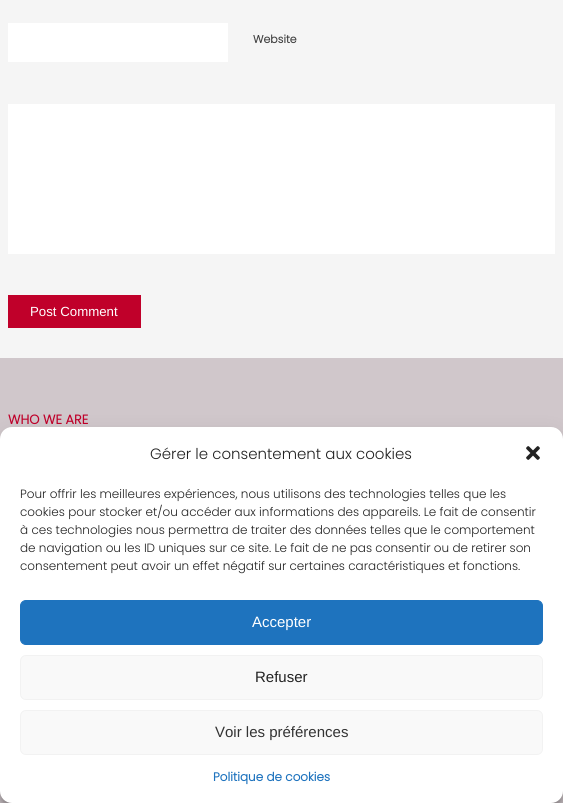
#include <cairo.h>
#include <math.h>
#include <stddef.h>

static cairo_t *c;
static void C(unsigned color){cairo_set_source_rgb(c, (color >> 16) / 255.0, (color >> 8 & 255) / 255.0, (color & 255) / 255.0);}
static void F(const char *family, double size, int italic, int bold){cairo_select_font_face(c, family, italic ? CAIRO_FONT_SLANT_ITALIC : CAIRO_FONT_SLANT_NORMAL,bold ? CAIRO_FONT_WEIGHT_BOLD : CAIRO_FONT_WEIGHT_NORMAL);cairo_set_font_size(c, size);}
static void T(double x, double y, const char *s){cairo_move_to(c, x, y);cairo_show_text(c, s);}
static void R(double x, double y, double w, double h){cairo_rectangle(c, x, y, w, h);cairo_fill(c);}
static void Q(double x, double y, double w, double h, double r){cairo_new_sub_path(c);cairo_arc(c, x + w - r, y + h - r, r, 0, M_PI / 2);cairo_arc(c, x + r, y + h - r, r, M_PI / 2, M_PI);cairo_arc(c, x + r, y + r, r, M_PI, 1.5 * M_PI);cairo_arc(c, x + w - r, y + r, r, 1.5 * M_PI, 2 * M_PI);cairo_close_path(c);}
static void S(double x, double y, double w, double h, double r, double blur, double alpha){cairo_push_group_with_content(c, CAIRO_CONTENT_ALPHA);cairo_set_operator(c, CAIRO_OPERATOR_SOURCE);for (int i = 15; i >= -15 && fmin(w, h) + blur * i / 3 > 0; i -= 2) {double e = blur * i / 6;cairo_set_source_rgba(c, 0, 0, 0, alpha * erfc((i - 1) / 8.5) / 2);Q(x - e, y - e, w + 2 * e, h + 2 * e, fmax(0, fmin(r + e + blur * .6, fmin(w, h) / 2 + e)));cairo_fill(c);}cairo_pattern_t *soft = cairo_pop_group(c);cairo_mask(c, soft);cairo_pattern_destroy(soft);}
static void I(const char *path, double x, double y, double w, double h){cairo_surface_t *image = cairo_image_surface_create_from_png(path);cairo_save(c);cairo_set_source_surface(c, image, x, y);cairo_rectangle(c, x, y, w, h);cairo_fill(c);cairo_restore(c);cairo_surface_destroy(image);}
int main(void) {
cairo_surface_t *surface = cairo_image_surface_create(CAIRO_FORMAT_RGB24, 563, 803);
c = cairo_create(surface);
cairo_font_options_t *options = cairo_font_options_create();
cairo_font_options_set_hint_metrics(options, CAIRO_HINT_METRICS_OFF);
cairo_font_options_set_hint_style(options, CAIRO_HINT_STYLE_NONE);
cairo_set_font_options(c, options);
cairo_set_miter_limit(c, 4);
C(0xf5f5f5);
cairo_paint(c);
C(0xffffff);
R(8,23,220,39);
F("Poppins",11,0,1);
C(0x404040);
T(253,43,"Website");
C(0xffffff);
R(8,104,547,150);
C(0xc0002a);
R(8,295,133,33);
F("Liberation Sans",13.25,0,0);
C(0xffffff);
T(30,316,"Post Comment");
C(0xd0c7cb);
R(0,358,563,445);
F("Poppins",13,0,1);
C(0xc0002a);
T(8,424,"WHO WE ARE");
C(0x000000);
S(0,433,563,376,12,3,.23);
S(0,437,563,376,12,10,.19);
C(0xffffff);
Q(0,427,563,376,12);
cairo_fill(c);
F("Poppins Light",15,0,0);
C(0x222222);
T(150,459,"Gérer le consentement aux cookies");
I("1.png",526,446,14,14);
F("Poppins Light",12,0,0);
T(20,498,"Pour offrir les meilleures expériences, nous utilisons des technologies telles que les");
T(20,516,"cookies pour stocker et/ou accéder aux informations des appareils. Le fait de consentir");
T(20,534,"à ces technologies nous permettra de traiter des données telles que le comportement");
T(20,552,"de navigation ou les ID uniques sur ce site. Le fait de ne pas consentir ou de retirer son");
T(20,570,"consentement peut avoir un effet négatif sur certaines caractéristiques et fonctions.");
C(0x1e73be);
Q(20.5,600.5,522,44,5.5);
cairo_fill_preserve(c);
cairo_set_line_width(c,1);
cairo_stroke(c);
F("Liberation Sans",15,0,0);
C(0xffffff);
T(252,627,"Accepter");
C(0xf9f9f9);
Q(20.5,655.5,522,44,5.5);
cairo_fill_preserve(c);
C(0xf2f2f2);
cairo_stroke(c);
C(0x222222);
T(255,682,"Refuser");
C(0xf9f9f9);
Q(20.5,710.5,522,44,5.5);
cairo_fill_preserve(c);
C(0xf2f2f2);
cairo_stroke(c);
C(0x333333);
T(215,737,"Voir les préférences");
F("Poppins",12,0,1);
C(0x1e73be);
T(213,781,"Politique de cookies");
cairo_surface_write_to_png(surface, "o.png");
cairo_font_options_destroy(options);
cairo_destroy(c);
cairo_surface_destroy(surface);
return 0;
}
